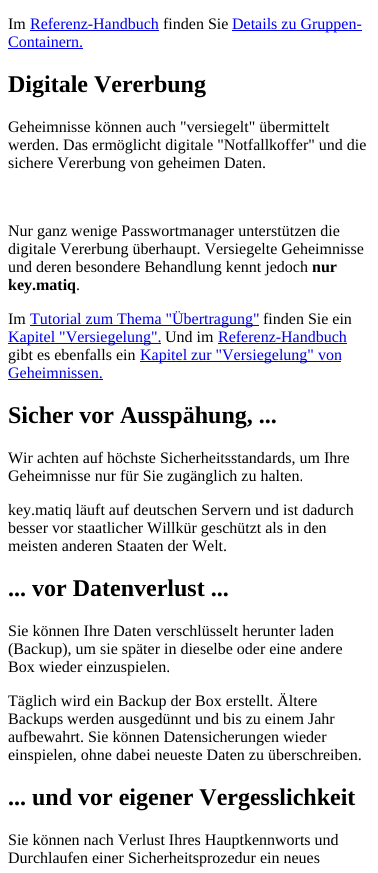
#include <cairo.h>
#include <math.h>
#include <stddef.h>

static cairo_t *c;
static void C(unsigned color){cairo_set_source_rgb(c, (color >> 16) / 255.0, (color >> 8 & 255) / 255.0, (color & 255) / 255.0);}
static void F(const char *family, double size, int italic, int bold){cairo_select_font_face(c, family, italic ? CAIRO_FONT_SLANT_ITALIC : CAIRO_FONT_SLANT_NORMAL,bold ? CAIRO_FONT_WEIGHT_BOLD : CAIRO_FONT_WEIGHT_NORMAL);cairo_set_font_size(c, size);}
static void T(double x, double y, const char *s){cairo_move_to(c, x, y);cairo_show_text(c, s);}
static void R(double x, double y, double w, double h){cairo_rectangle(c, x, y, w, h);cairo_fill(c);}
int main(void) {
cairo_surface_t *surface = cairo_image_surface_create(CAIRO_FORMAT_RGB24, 378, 873);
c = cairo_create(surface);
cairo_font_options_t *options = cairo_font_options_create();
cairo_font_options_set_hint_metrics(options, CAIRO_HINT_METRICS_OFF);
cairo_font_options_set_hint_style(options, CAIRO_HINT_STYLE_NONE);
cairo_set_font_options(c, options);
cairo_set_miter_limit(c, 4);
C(0xffffff);
cairo_paint(c);
F("Liberation Serif",16,0,0);
C(0x000000);
T(8,29,"Im");
C(0x0000ee);
T(30,29,"Referenz-Handbuch");
R(30,30,129,1);
C(0x000000);
T(163,29,"finden Sie");
C(0x0000ee);
R(232,30,130,1);
T(232,29,"Details zu Gruppen-");
T(8,47,"Containern.");
R(8,48,75,1);
F("Liberation Serif",24,0,1);
C(0x000000);
T(8,92,"Digitale Vererbung");
F("Liberation Serif",16,0,0);
T(8,132,"Geheimnisse können auch \"versiegelt\" übermittelt");
T(8,150,"werden. Das ermöglicht digitale \"Notfallkoffer\" und die");
T(8,168,"sichere Vererbung von geheimen Daten.");
T(8,236,"Nur ganz wenige Passwortmanager unterstützen die");
T(8,254,"digitale Vererbung überhaupt. Versiegelte Geheimnisse");
T(8,272,"und deren besondere Behandlung kennt jedoch");
F("Liberation Serif",16,0,1);
T(312,272,"nur");
T(8,290,"key.matiq");
F("Liberation Serif",16,0,0);
T(76,290,".");
T(8,324,"Im");
C(0x0000ee);
R(30,325,229,1);
T(30,324,"Tutorial zum Thema \"Übertragung\"");
C(0x000000);
T(263,324,"finden Sie ein");
C(0x0000ee);
R(8,343,153,1);
T(8,342,"Kapitel \"Versiegelung\".");
C(0x000000);
T(165,342,"Und im");
C(0x0000ee);
T(218,342,"Referenz-Handbuch");
R(218,343,129,1);
C(0x000000);
T(8,360,"gibt es ebenfalls ein");
C(0x0000ee);
R(140,361,201,1);
T(140,360,"Kapitel zur \"Versiegelung\" von");
T(8,378,"Geheimnissen.");
R(8,379,95,1);
F("Liberation Serif",24,0,1);
C(0x000000);
T(8,423,"Sicher vor Ausspähung, ...");
F("Liberation Serif",16,0,0);
T(8,463,"Wir achten auf höchste Sicherheitsstandards, um Ihre");
T(8,481,"Geheimnisse nur für Sie zugänglich zu halten.");
T(8,515,"key.matiq läuft auf deutschen Servern und ist dadurch");
T(8,533,"besser vor staatlicher Willkür geschützt als in den");
T(8,551,"meisten anderen Staaten der Welt.");
F("Liberation Serif",24,0,1);
T(8,596,"... vor Datenverlust ...");
F("Liberation Serif",16,0,0);
T(8,636,"Sie können Ihre Daten verschlüsselt herunter laden");
T(8,654,"(Backup), um sie später in dieselbe oder eine andere");
T(8,672,"Box wieder einzuspielen.");
T(8,706,"Täglich wird ein Backup der Box erstellt. Ältere");
T(8,724,"Backups werden ausgedünnt und bis zu einem Jahr");
T(8,742,"aufbewahrt. Sie können Datensicherungen wieder");
T(8,760,"einspielen, ohne dabei neueste Daten zu überschreiben.");
F("Liberation Serif",24,0,1);
T(8,805,"... und vor eigener Vergesslichkeit");
F("Liberation Serif",16,0,0);
T(8,845,"Sie können nach Verlust Ihres Hauptkennworts und");
T(8,863,"Durchlaufen einer Sicherheitsprozedur ein neues");
cairo_surface_write_to_png(surface, "o.png");
cairo_font_options_destroy(options);
cairo_destroy(c);
cairo_surface_destroy(surface);
return 0;
}
